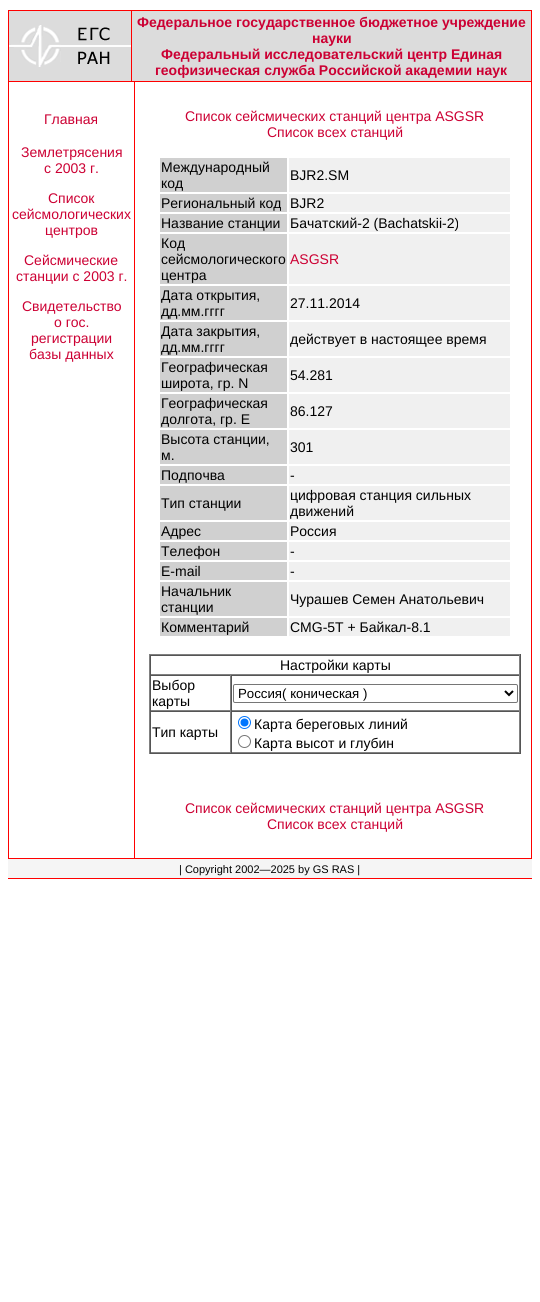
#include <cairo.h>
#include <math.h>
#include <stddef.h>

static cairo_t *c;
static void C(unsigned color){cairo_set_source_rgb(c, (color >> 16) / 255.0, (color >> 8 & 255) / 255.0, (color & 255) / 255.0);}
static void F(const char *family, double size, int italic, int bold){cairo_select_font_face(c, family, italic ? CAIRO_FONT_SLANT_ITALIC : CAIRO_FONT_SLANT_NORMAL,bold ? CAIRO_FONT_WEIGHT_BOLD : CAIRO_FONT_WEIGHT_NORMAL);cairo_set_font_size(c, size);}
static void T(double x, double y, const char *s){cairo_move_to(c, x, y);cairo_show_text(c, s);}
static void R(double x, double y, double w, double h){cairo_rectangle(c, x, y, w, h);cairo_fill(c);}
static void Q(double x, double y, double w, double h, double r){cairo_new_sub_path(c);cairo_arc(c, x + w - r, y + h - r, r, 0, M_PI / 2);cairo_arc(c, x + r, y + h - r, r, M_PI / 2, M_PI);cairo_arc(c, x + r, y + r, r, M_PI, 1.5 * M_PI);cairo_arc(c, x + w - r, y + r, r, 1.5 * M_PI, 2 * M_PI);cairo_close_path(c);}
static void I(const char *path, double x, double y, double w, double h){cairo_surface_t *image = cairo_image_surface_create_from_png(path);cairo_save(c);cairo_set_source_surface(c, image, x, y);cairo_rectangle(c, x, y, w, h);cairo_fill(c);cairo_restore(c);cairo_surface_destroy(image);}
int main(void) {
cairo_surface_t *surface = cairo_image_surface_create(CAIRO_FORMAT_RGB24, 540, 1302);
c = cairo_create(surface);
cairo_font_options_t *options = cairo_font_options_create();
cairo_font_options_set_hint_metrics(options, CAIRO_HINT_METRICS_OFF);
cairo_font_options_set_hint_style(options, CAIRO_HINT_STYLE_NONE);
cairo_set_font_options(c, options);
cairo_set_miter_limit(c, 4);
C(0xffffff);
cairo_paint(c);
C(0xff0000);
R(8,10,1,848);
R(9,10,522,1);
C(0xdcdcdc);
R(9,11,522,70);
I("1.png",9,25,122,42);
C(0xff0000);
R(131,11,1,70);
F("Liberation Sans",14,0,1);
C(0xcc0033);
T(137,27,"Федеральное государственное бюджетное учреждение");
T(312,43,"науки");
T(161,59,"Федеральный исследовательский центр Единая");
T(155,75,"геофизическая служба Российской академии наук");
C(0xff0000);
R(9,81,522,1);
R(531,10,1,848);
F("Liberation Sans",14,0,0);
C(0xcc0033);
T(44,124,"Главная");
T(21,157,"Землетрясения");
T(44,173,"с 2003 г.");
T(48,203,"Список");
T(12,219,"сейсмологических");
T(45,235,"центров");
T(24,265,"Сейсмические");
T(16,281,"станции с 2003 г.");
T(22,311,"Свидетельство");
T(54,327,"о гос.");
T(31,343,"регистрации");
T(29,359,"базы данных");
C(0xff0000);
R(134,82,1,776);
C(0xcc0033);
T(185,121,"Список сейсмических станций центра ASGSR");
T(267,137,"Список всех станций");
C(0xd0d0d0);
R(160,158,127,34);
C(0x000000);
T(161,172,"Международный");
T(161,188,"код");
C(0xf0f0f0);
R(289,158,221,34);
C(0x000000);
T(290,180,"BJR2.SM");
C(0xd0d0d0);
R(160,194,127,18);
C(0x000000);
T(161,208,"Региональный код");
C(0xf0f0f0);
R(289,194,221,18);
C(0x000000);
T(290,208,"BJR2");
C(0xd0d0d0);
R(160,214,127,18);
C(0x000000);
T(161,228,"Название станции");
C(0xf0f0f0);
R(289,214,221,18);
C(0x000000);
T(290,228,"Бачатский-2 (Bachatskii-2)");
C(0xd0d0d0);
R(160,234,127,50);
C(0x000000);
T(161,248,"Код");
T(161,264,"сейсмологического");
T(161,280,"центра");
C(0xf0f0f0);
R(289,234,221,50);
C(0xcc0033);
T(290,264,"ASGSR");
C(0xd0d0d0);
R(160,286,127,34);
C(0x000000);
T(161,300,"Дата открытия,");
T(161,316,"дд.мм.гггг");
C(0xf0f0f0);
R(289,286,221,34);
C(0x000000);
T(290,308,"27.11.2014");
C(0xd0d0d0);
R(160,322,127,34);
C(0x000000);
T(161,336,"Дата закрытия,");
T(161,352,"дд.мм.гггг");
C(0xf0f0f0);
R(289,322,221,34);
C(0x000000);
T(290,344,"действует в настоящее время");
C(0xd0d0d0);
R(160,358,127,34);
C(0x000000);
T(161,372,"Географическая");
T(161,388,"широта, гр. N");
C(0xf0f0f0);
R(289,358,221,34);
C(0x000000);
T(290,380,"54.281");
C(0xd0d0d0);
R(160,394,127,34);
C(0x000000);
T(161,408,"Географическая");
T(161,424,"долгота, гр. E");
C(0xf0f0f0);
R(289,394,221,34);
C(0x000000);
T(290,416,"86.127");
C(0xd0d0d0);
R(160,430,127,34);
C(0x000000);
T(161,444,"Высота станции,");
T(161,460,"м.");
C(0xf0f0f0);
R(289,430,221,34);
C(0x000000);
T(290,452,"301");
C(0xd0d0d0);
R(160,466,127,18);
C(0x000000);
T(161,480,"Подпочва");
C(0xf0f0f0);
R(289,466,221,18);
C(0x000000);
T(290,480,"-");
C(0xd0d0d0);
R(160,486,127,34);
C(0x000000);
T(161,508,"Тип станции");
C(0xf0f0f0);
R(289,486,221,34);
C(0x000000);
T(290,500,"цифровая станция сильных");
T(290,516,"движений");
C(0xd0d0d0);
R(160,522,127,18);
C(0x000000);
T(161,536,"Адрес");
C(0xf0f0f0);
R(289,522,221,18);
C(0x000000);
T(290,536,"Россия");
C(0xd0d0d0);
R(160,542,127,18);
C(0x000000);
T(161,556,"Телефон");
C(0xf0f0f0);
R(289,542,221,18);
C(0x000000);
T(290,556,"-");
C(0xd0d0d0);
R(160,562,127,18);
C(0x000000);
T(161,576,"E-mail");
C(0xf0f0f0);
R(289,562,221,18);
C(0x000000);
T(290,576,"-");
C(0xd0d0d0);
R(160,582,127,34);
C(0x000000);
T(161,596,"Начальник");
T(161,612,"станции");
C(0xf0f0f0);
R(289,582,221,34);
C(0x000000);
T(290,604,"Чурашев Семен Анатольевич");
C(0xd0d0d0);
R(160,618,127,18);
C(0x000000);
T(161,632,"Комментарий");
C(0xf0f0f0);
R(289,618,221,18);
C(0x000000);
T(290,632,"СМG-5Т + Байкал-8.1");
C(0x808080);
R(149,654,372,1);
C(0x555555);
R(520,654,1,100);
R(149,753,372,1);
C(0x808080);
R(149,654,1,100);
C(0x555555);
R(150,655,370,1);
C(0x808080);
R(519,655,1,20);
R(150,674,370,1);
C(0x555555);
R(150,655,1,20);
C(0x000000);
T(280,670,"Настройки карты");
C(0x555555);
R(150,675,370,1);
C(0x808080);
R(230,675,1,36);
R(150,710,81,1);
C(0x555555);
R(150,675,1,36);
C(0x000000);
T(152,690,"Выбор");
T(152,706,"карты");
C(0x808080);
R(519,675,1,36);
R(231,710,289,1);
C(0x555555);
R(231,675,1,36);
Q(233.5,684.5,284,18,1.5);
C(0x767676);
cairo_set_line_width(c,1);
cairo_stroke(c);
cairo_new_path(c);
cairo_move_to(c,505,691);
cairo_line_to(c,509,695);
cairo_line_to(c,513,691);
C(0x000000);
cairo_set_line_width(c,2);
cairo_stroke(c);
F("Liberation Sans",13.25,0,0);
T(238,698,"Россия( коническая )");
C(0x555555);
R(150,711,370,1);
C(0x808080);
R(230,711,1,42);
R(150,752,81,1);
C(0x555555);
R(150,711,1,42);
F("Liberation Sans",14,0,0);
C(0x000000);
T(152,737,"Тип карты");
C(0x808080);
R(519,711,1,42);
R(231,752,289,1);
C(0x555555);
R(231,711,1,42);
cairo_new_path(c);
cairo_arc(c,244.5,722.5,6,0,2 * M_PI);
C(0x0075ff);
cairo_set_line_width(c,1);
cairo_stroke(c);
cairo_arc(c,244.5,722.5,4,0,2 * M_PI);
cairo_fill(c);
C(0x000000);
T(254,729,"Карта береговых линий");
cairo_new_path(c);
cairo_arc(c,244.5,741.5,6,0,2 * M_PI);
C(0x767676);
cairo_stroke(c);
C(0x000000);
T(254,748,"Карта высот и глубин");
C(0xcc0033);
T(185,813,"Список сейсмических станций центра ASGSR");
T(267,829,"Список всех станций");
C(0xff0000);
R(8,858,524,1);
C(0xf5f5f5);
R(8,859,524,19);
F("Liberation Sans",11,0,0);
C(0x000000);
T(179,873,"| Copyright 2002—2025 by GS RAS |");
C(0xff0000);
R(8,878,524,1);
cairo_surface_write_to_png(surface, "o.png");
cairo_font_options_destroy(options);
cairo_destroy(c);
cairo_surface_destroy(surface);
return 0;
}
